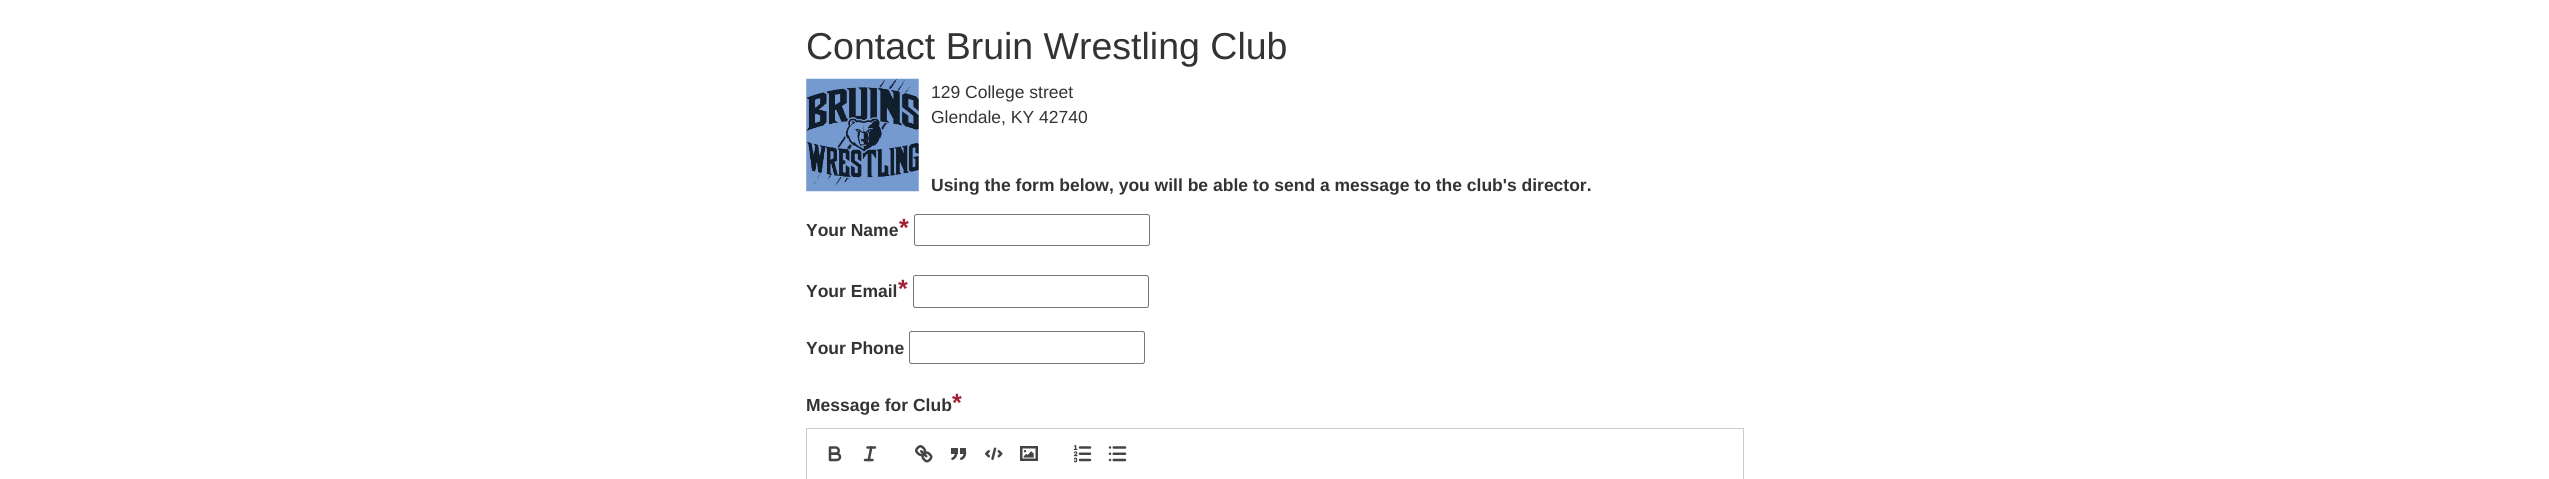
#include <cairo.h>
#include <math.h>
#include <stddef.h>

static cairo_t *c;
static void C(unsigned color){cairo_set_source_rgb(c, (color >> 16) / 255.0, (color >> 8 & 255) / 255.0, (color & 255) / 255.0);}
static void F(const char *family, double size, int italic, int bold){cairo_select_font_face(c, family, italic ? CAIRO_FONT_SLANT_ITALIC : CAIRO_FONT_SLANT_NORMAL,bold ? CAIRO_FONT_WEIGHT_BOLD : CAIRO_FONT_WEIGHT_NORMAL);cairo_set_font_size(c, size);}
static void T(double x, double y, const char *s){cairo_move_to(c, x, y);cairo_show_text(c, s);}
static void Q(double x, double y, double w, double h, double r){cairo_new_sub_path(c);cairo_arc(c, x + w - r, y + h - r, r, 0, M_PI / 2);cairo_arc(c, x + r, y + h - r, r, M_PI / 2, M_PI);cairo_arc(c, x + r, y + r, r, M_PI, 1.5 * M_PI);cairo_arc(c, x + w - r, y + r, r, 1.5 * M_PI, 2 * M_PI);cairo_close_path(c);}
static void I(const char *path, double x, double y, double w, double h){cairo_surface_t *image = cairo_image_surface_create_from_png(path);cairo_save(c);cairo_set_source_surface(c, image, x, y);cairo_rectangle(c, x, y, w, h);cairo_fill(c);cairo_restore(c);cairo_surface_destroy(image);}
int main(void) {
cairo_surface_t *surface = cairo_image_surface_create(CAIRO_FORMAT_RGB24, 2549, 479);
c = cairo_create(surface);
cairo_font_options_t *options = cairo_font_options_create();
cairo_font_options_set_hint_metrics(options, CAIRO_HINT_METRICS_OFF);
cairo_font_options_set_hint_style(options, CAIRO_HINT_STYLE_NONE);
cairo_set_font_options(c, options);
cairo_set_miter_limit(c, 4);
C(0xffffff);
cairo_paint(c);
F("Liberation Sans",37.5,0,0);
C(0x333333);
T(806,59,"Contact Bruin Wrestling Club");
I("1.png",806,78,113,114);
F("Liberation Sans",17.5,0,0);
T(931,98,"129 College street");
T(931,123,"Glendale, KY 42740");
F("Liberation Sans",17.5,0,1);
T(931,191,"Using the form below, you will be able to send a message to the club's director.");
T(806,236,"Your Name");
F("Liberation Sans",25,0,1);
C(0xa02037);
T(899,236,"*");
Q(914.5,214.5,235,31,2);
C(0x767676);
cairo_set_line_width(c,1);
cairo_stroke(c);
F("Liberation Sans",17.5,0,1);
C(0x333333);
T(806,297,"Your Email");
F("Liberation Sans",25,0,1);
C(0xa02037);
T(898,297,"*");
Q(913.5,275.5,235,32,2);
C(0x767676);
cairo_stroke(c);
F("Liberation Sans",17.5,0,1);
C(0x333333);
T(806,354,"Your Phone");
Q(909.5,331.5,235,32,2);
C(0x767676);
cairo_stroke(c);
C(0x333333);
T(806,411,"Message for Club");
F("Liberation Sans",25,0,1);
C(0xa02037);
T(952,411,"*");
cairo_rectangle(c,806.5,428.5,937,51);
C(0xcccccc);
cairo_stroke(c);
I("2.png",828,446,14,16);
I("3.png",863,446,14,16);
I("4.png",915,445,18,18);
I("5.png",951,448,16,12);
I("6.png",985,447,18,13);
I("7.png",1020,446,18,15);
I("8.png",1073,445,19,18);
I("9.png",1108,446,19,16);
cairo_surface_write_to_png(surface, "o.png");
cairo_font_options_destroy(options);
cairo_destroy(c);
cairo_surface_destroy(surface);
return 0;
}
